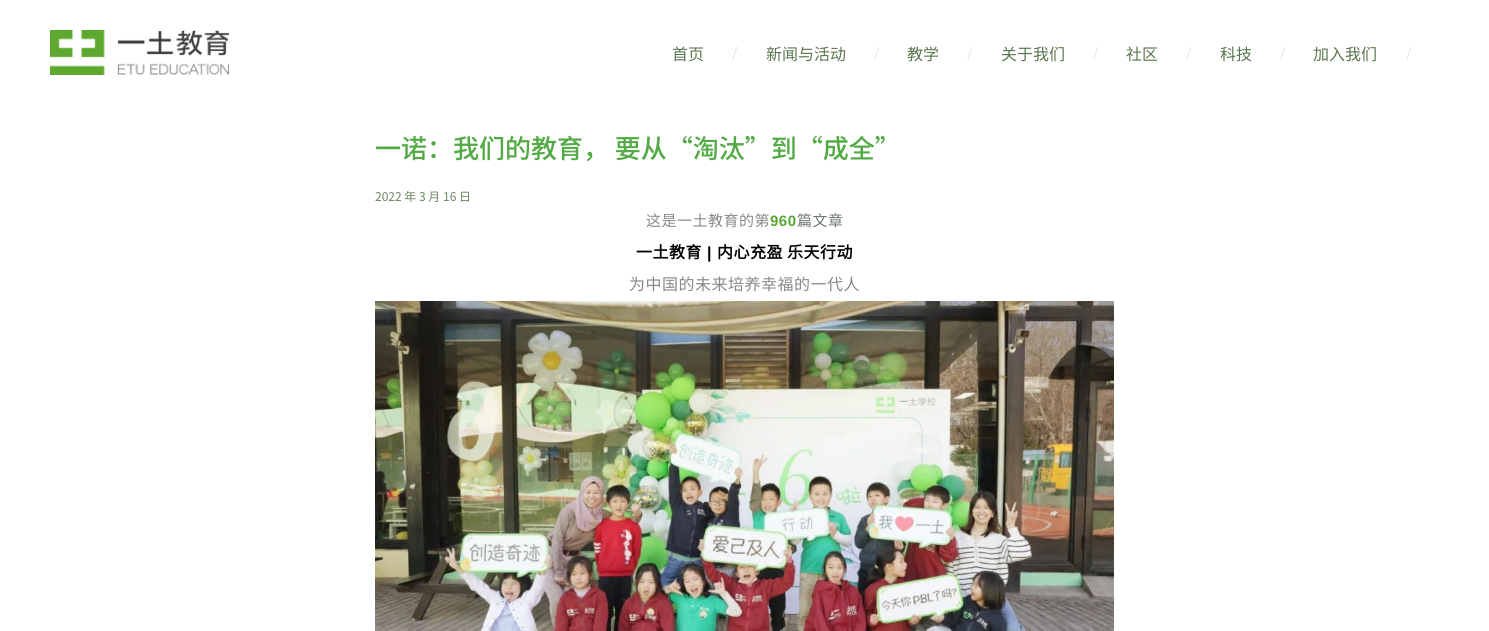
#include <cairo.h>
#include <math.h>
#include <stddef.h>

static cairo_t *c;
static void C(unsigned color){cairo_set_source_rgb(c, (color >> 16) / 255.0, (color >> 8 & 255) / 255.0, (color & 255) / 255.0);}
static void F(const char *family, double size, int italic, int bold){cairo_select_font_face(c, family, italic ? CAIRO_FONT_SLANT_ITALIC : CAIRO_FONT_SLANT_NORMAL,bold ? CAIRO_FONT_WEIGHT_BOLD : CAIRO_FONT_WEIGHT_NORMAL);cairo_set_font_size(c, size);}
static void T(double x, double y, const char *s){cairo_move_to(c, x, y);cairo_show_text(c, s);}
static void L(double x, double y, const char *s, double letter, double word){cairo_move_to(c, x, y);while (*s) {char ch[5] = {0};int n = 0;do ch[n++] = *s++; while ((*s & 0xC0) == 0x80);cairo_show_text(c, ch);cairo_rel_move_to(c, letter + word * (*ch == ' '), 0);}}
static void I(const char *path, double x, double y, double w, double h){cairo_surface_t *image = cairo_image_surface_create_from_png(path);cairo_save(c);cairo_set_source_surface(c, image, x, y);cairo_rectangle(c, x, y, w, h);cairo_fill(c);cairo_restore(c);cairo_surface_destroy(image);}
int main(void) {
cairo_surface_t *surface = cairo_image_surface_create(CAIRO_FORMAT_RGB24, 1489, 631);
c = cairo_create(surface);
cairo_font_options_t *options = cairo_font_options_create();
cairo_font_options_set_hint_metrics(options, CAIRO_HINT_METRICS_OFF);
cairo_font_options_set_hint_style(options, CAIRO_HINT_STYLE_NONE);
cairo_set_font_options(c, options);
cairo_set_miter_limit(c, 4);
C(0xffffff);
cairo_paint(c);
I("1.png",50,30,179,45);
F("Noto Sans CJK SC",16,0,0);
C(0x5b764f);
T(672,60,"首页");
F("Noto Sans CJK SC",14,0,0);
C(0xdee4dc);
T(732,58,"/");
F("Noto Sans CJK SC",16,0,0);
C(0x5b764f);
T(766,60,"新闻与活动");
F("Noto Sans CJK SC",14,0,0);
C(0xdee4dc);
T(874,58,"/");
F("Noto Sans CJK SC",16,0,0);
C(0x5b764f);
T(907,60,"教学");
F("Noto Sans CJK SC",14,0,0);
C(0xdee4dc);
T(967,58,"/");
F("Noto Sans CJK SC",16,0,0);
C(0x5b764f);
T(1001,60,"关于我们");
F("Noto Sans CJK SC",14,0,0);
C(0xdee4dc);
T(1093,58,"/");
F("Noto Sans CJK SC",16,0,0);
C(0x5b764f);
T(1126,60,"社区");
F("Noto Sans CJK SC",14,0,0);
C(0xdee4dc);
T(1186,58,"/");
F("Noto Sans CJK SC",16,0,0);
C(0x5b764f);
T(1220,60,"科技");
F("Noto Sans CJK SC",14,0,0);
C(0xdee4dc);
T(1280,58,"/");
F("Noto Sans CJK SC",16,0,0);
C(0x5b764f);
T(1313,60,"加入我们");
F("Noto Sans CJK SC",14,0,0);
C(0xdee4dc);
T(1406,58,"/");
F("Noto Sans CJK SC Medium",26,0,0);
C(0x53aa45);
T(375,158,"一诺：我们的教育， 要从“淘汰”到“成全”");
F("Noto Sans CJK SC",12,0,0);
C(0x6b8461);
T(375,201,"2022 年 3 月 16 日");
F("Noto Sans CJK SC",15,0,0);
C(0x888888);
L(646,226,"这是一土教育的第",.5,0);
F("Liberation Sans",15,0,1);
C(0x57a633);
L(770,226,"960",.5,0);
F("Noto Sans CJK SC",15,0,0);
C(0x6c7577);
L(797,226,"篇文章",.5,0);
F("Noto Sans CJK SC",16,0,1);
C(0x000000);
L(636,258,"一土教育",.5,0);
F("Liberation Sans",16,0,1);
L(707,258,"|",.5,0);
F("Noto Sans CJK SC",16,0,1);
L(717,258,"内心充盈 乐天行动",.5,0);
F("Noto Sans CJK SC",16,0,0);
C(0x888888);
L(629,290,"为中国的未来培养幸福的一代人",.5,0);
I("2.png",375,301,739,330);
cairo_surface_write_to_png(surface, "o.png");
cairo_font_options_destroy(options);
cairo_destroy(c);
cairo_surface_destroy(surface);
return 0;
}
